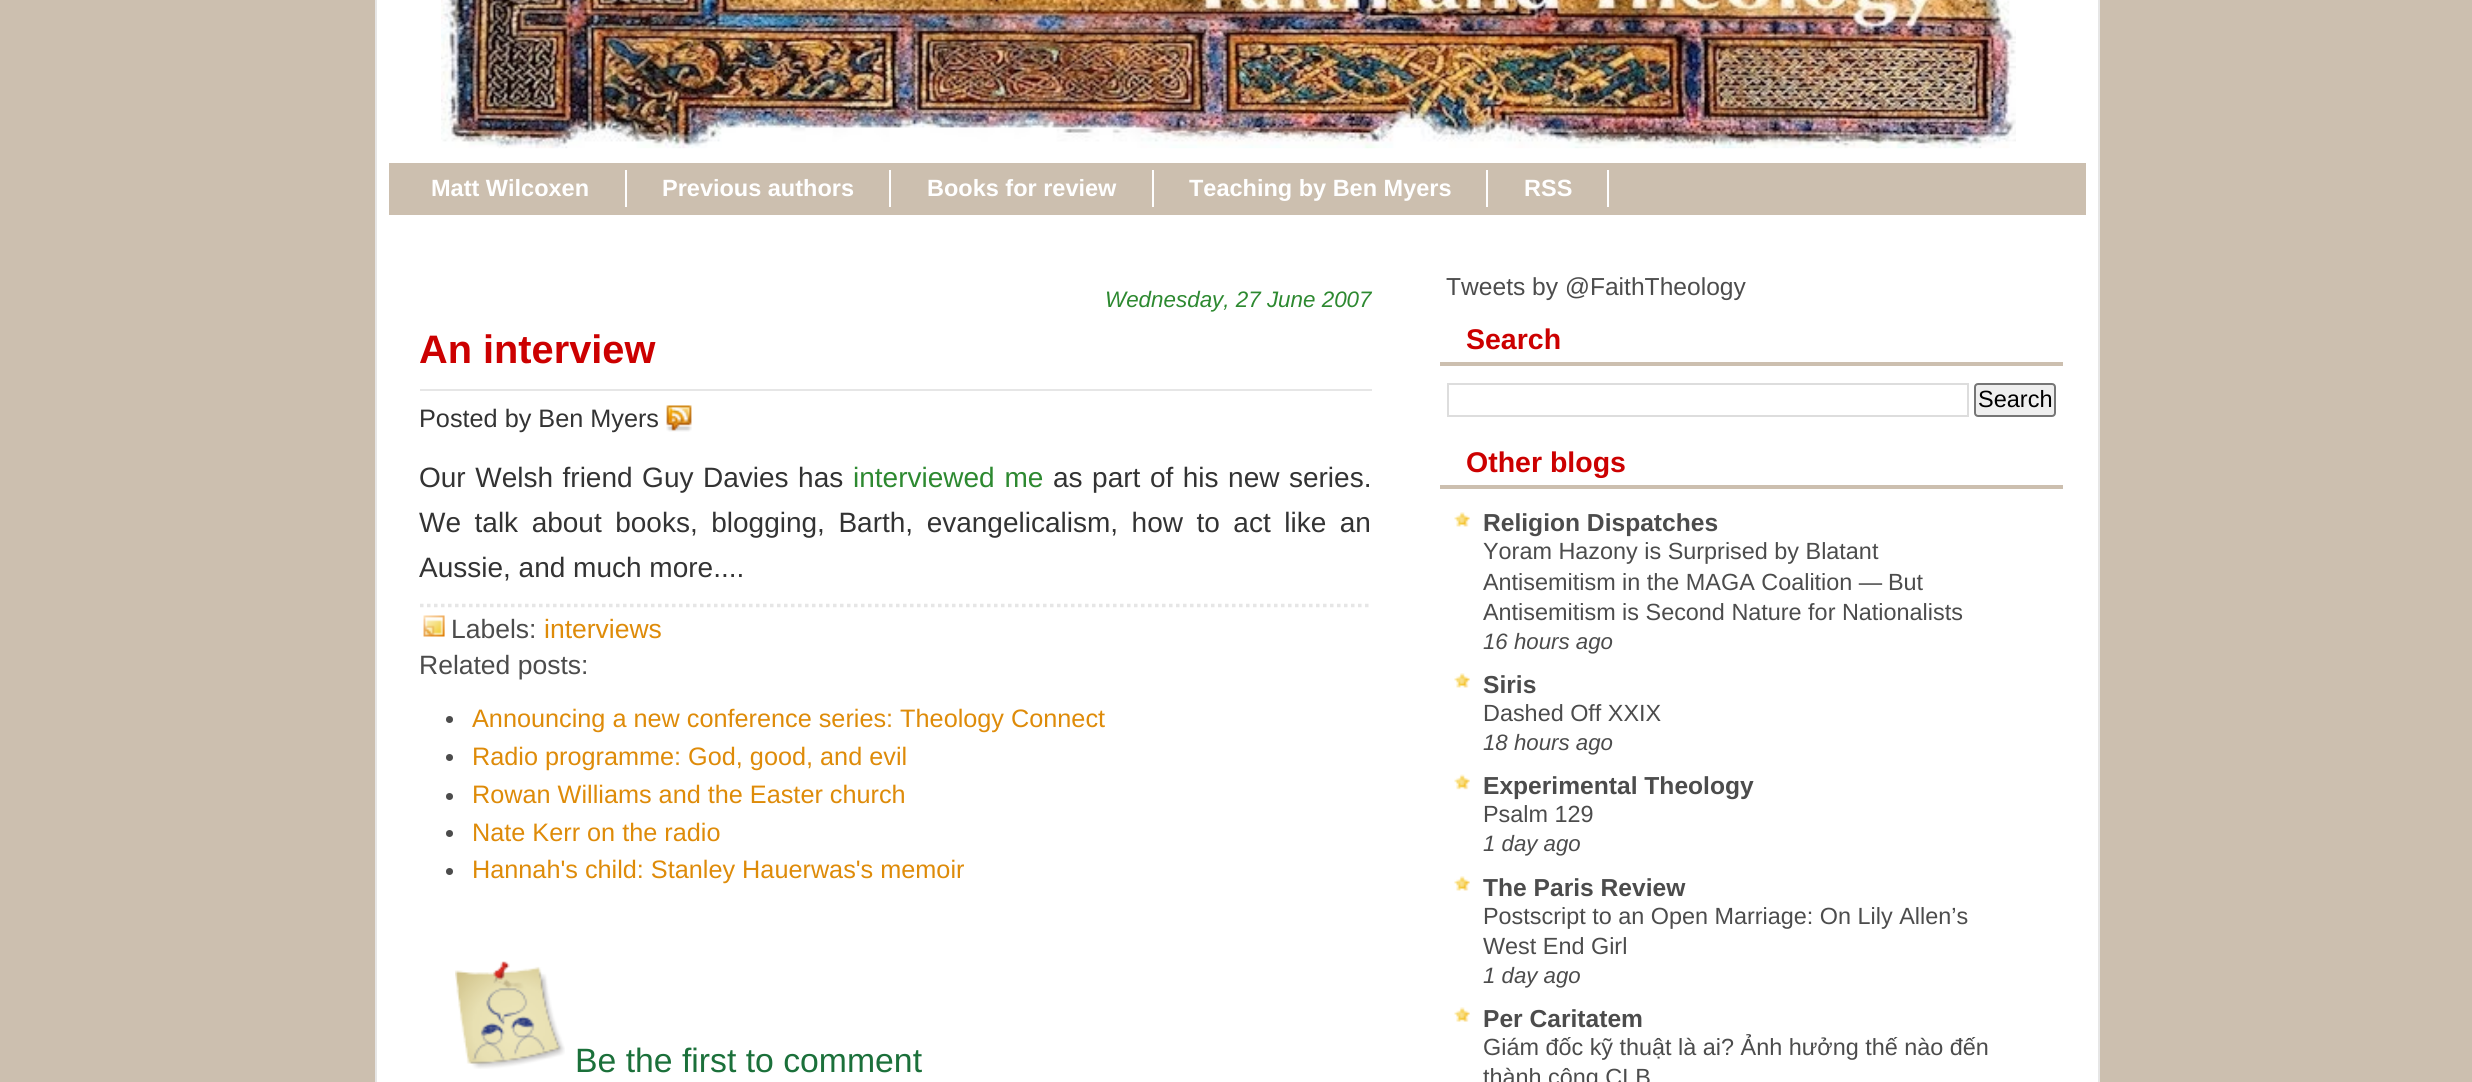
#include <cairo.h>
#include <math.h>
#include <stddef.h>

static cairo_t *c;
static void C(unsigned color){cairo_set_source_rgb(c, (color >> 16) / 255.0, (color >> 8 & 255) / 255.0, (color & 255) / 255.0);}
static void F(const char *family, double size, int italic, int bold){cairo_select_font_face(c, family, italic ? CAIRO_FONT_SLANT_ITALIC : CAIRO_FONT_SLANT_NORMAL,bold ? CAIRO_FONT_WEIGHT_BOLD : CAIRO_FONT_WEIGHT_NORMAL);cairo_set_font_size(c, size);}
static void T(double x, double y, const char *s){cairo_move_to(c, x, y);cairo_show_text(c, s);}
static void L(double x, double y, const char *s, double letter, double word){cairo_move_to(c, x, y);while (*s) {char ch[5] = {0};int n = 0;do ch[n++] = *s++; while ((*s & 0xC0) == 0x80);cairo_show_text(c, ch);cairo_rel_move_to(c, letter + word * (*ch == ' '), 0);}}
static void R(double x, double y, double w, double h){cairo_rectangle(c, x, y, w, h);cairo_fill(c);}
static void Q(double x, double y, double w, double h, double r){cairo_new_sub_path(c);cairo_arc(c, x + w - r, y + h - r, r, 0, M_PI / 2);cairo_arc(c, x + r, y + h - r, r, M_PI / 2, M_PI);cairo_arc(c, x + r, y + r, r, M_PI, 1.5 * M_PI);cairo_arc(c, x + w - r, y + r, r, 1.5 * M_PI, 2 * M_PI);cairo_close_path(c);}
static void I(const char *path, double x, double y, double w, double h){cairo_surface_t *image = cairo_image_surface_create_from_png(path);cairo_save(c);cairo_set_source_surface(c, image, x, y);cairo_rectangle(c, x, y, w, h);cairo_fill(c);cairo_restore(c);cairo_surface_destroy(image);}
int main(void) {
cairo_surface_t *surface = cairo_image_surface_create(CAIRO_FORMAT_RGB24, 2472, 1082);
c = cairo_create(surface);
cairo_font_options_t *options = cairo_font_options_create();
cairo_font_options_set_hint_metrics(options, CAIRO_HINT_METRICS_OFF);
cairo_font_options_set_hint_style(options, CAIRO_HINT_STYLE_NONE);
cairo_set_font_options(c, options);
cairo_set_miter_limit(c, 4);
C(0xccbfaf);
cairo_paint(c);
C(0xffffff);
cairo_rectangle(c,376,-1,1723,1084);
cairo_fill_preserve(c);
C(0xe6e6e6);
cairo_stroke(c);
I("1.png",441,0,1575,149);
C(0xccbfaf);
R(389,163,1697,52);
F("Liberation Sans",23.5,0,1);
C(0xffffff);
T(431,196,"Matt Wilcoxen");
R(625,170,2,37);
T(662,196,"Previous authors");
R(889,170,2,37);
T(927,196,"Books for review");
R(1152,170,2,37);
T(1189,196,"Teaching by Ben Myers");
R(1486,170,2,37);
T(1524,196,"RSS");
R(1607,170,2,37);
F("Liberation Sans",22.4,1,0);
C(0x2d8930);
T(1105,307,"Wednesday, 27 June 2007");
C(0xe6e6e6);
R(420,389,952,2);
F("Liberation Sans",39.75,0,1);
C(0xcc0000);
T(419,363,"An interview");
F("Liberation Sans",25.25,0,0);
C(0x333333);
T(419,427,"Posted by Ben Myers");
I("2.png",666,405,26,27);
F("Liberation Sans",28,0,0);
L(419,487,"Our Welsh friend Guy Davies has",0,1.75);
C(0x2d8930);
L(853,487,"interviewed me",0,2);
C(0x333333);
L(1053,487,"as part of his new series.",0,1.75);
L(419,532,"We talk about books, blogging, Barth, evangelicalism, how to act like an",0,5.75);
T(419,577,"Aussie, and much more....");
cairo_new_path(c);
cairo_move_to(c,420,605.5);
cairo_line_to(c,1372,605.5);
C(0xe6e6e6);
cairo_set_line_width(c,3.5);
cairo_set_dash(c,(double[]){3.5,3.5},2,0);
cairo_stroke(c);
I("3.png",423,615,22,22);
F("Liberation Sans",26.5,0,0);
C(0x4c4c4c);
T(451,638,"Labels:");
C(0xde8b09);
T(544,638,"interviews");
C(0x4c4c4c);
T(419,674,"Related posts:");
cairo_new_path(c);
cairo_arc(c,449.5,719.5,3.5,0,2 * M_PI);
cairo_fill(c);
F("Liberation Sans",25.25,0,0);
C(0xde8b09);
T(472,727,"Announcing a new conference series: Theology Connect");
C(0x4c4c4c);
cairo_new_path(c);
cairo_arc(c,449.5,757.5,3.5,0,2 * M_PI);
cairo_fill(c);
C(0xde8b09);
T(472,765,"Radio programme: God, good, and evil");
C(0x4c4c4c);
cairo_new_path(c);
cairo_arc(c,449.5,796.5,3.5,0,2 * M_PI);
cairo_fill(c);
C(0xde8b09);
T(472,803,"Rowan Williams and the Easter church");
C(0x4c4c4c);
cairo_new_path(c);
cairo_arc(c,449.5,833.5,3.5,0,2 * M_PI);
cairo_fill(c);
C(0xde8b09);
T(472,841,"Nate Kerr on the radio");
C(0x4c4c4c);
cairo_new_path(c);
cairo_arc(c,449.5,871.5,3.5,0,2 * M_PI);
cairo_fill(c);
C(0xde8b09);
T(472,878,"Hannah's child: Stanley Hauerwas's memoir");
I("4.png",455,961,110,108);
F("Liberation Sans",33.75,0,0);
C(0x1b703a);
T(575,1072,"Be the first to comment");
F("Liberation Sans",24.6,0,0);
C(0x4c4c4c);
T(1446,295,"Tweets by @FaithTheology");
C(0xccbfaf);
R(1440,362,623,4);
F("Liberation Sans",28.5,0,1);
C(0xcc0000);
T(1466,349,"Search");
cairo_rectangle(c,1448,384,520,32);
C(0xdddddd);
cairo_set_line_width(c,2);
cairo_set_dash(c,NULL,0,0);
cairo_stroke(c);
C(0xefefef);
Q(1975,384,80,32,3);
cairo_fill_preserve(c);
C(0x767676);
cairo_stroke(c);
F("Liberation Sans",23.5,0,0);
C(0x000000);
T(1978,407,"Search");
C(0xccbfaf);
R(1440,485,623,4);
F("Liberation Sans",28.5,0,1);
C(0xcc0000);
T(1466,472,"Other blogs");
I("5.png",1454,512,16,15);
F("Liberation Sans",24.6,0,1);
C(0x4c4c4c);
T(1483,531,"Religion Dispatches");
F("Liberation Sans",23.4,0,0);
T(1483,559,"Yoram Hazony is Surprised by Blatant");
T(1483,590,"Antisemitism in the MAGA Coalition —");
T(1888,590,"But");
T(1483,620,"Antisemitism is Second Nature for Nationalists");
F("Liberation Sans",22.25,1,0);
T(1483,649,"16 hours ago");
I("5.png",1454,673,16,15);
F("Liberation Sans",24.6,0,1);
T(1483,693,"Siris");
F("Liberation Sans",23.4,0,0);
T(1483,721,"Dashed Off XXIX");
F("Liberation Sans",22.25,1,0);
T(1483,750,"18 hours ago");
I("6.png",1454,774,16,16);
F("Liberation Sans",24.6,0,1);
T(1483,794,"Experimental Theology");
F("Liberation Sans",23.4,0,0);
T(1483,822,"Psalm 129");
F("Liberation Sans",22.25,1,0);
T(1483,851,"1 day ago");
I("5.png",1454,876,16,15);
F("Liberation Sans",24.6,0,1);
T(1483,896,"The Paris Review");
F("Liberation Sans",23.4,0,0);
T(1483,924,"Postscript to an Open Marriage: On Lily Allen’s");
T(1483,954,"West End Girl");
F("Liberation Sans",22.25,1,0);
T(1483,983,"1 day ago");
I("7.png",1454,1007,16,15);
F("Liberation Sans",24.6,0,1);
T(1483,1027,"Per Caritatem");
F("Liberation Sans",23.4,0,0);
T(1483,1055,"Giám đốc kỹ thuật là ai? Ảnh hưởng thế nào đến");
T(1483,1085,"thành công CLB");
cairo_surface_write_to_png(surface, "o.png");
cairo_font_options_destroy(options);
cairo_destroy(c);
cairo_surface_destroy(surface);
return 0;
}
